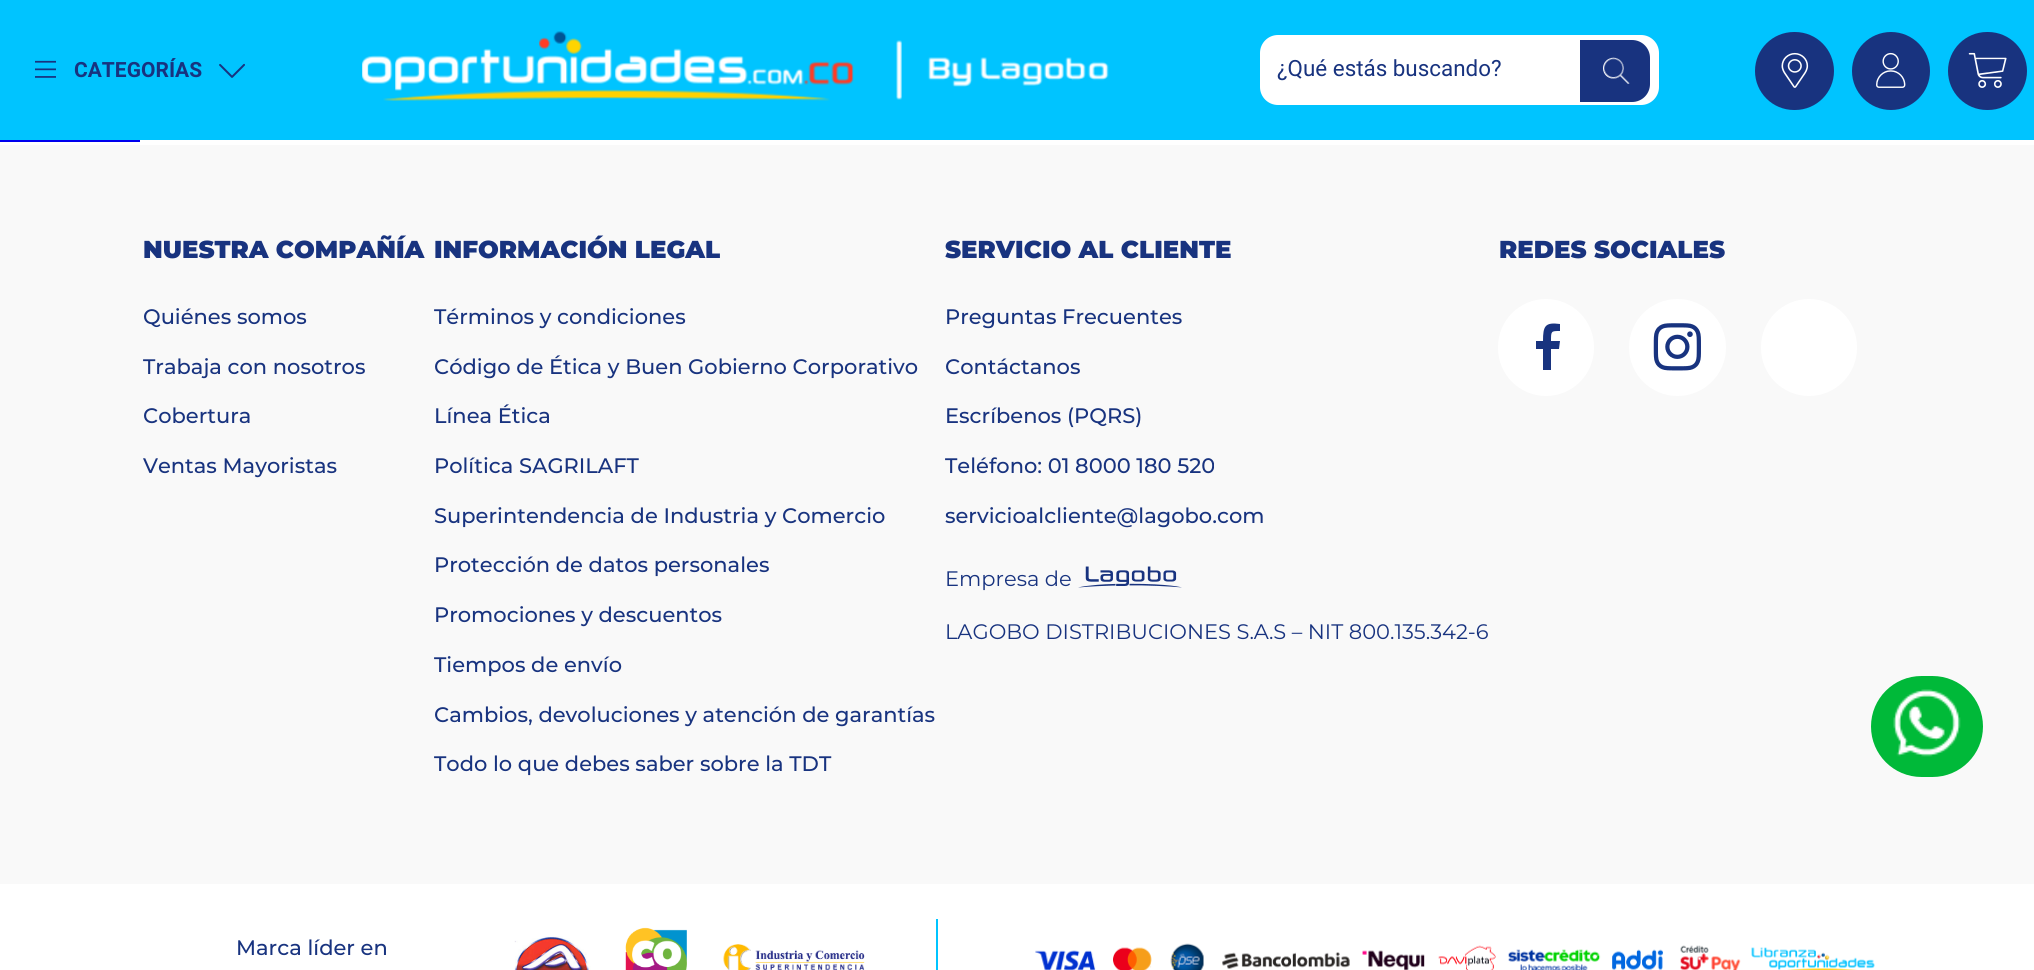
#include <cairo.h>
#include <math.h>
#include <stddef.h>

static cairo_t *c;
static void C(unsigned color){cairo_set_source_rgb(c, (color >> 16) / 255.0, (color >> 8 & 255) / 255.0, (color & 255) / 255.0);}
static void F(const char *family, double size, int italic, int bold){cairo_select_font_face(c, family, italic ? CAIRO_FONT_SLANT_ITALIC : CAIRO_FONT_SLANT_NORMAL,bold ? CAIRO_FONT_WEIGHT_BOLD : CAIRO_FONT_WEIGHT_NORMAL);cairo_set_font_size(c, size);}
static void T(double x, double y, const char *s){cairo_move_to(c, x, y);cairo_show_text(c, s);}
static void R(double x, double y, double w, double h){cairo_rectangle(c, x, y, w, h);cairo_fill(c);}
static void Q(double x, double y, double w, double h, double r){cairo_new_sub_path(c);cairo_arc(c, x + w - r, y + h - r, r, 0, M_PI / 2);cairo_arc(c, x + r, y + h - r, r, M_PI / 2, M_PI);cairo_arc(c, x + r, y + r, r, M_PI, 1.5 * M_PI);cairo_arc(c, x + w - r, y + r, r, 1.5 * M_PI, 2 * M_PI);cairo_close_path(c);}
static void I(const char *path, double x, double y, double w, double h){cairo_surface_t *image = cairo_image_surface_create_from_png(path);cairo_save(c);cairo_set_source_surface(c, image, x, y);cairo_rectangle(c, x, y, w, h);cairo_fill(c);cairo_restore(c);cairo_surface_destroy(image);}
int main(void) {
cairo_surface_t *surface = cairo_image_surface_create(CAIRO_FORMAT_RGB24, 2034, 970);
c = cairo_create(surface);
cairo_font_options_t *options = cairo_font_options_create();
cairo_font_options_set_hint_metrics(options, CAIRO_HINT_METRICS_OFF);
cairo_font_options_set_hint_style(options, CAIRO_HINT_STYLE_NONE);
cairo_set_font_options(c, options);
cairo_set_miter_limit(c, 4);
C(0xffffff);
cairo_paint(c);
C(0x00c4ff);
R(0,0,2034,140);
I("1.png",35,60,21,18);
F("Roboto",21,0,1);
C(0x18337f);
T(74,77,"CATEGORÍAS");
I("2.png",219,63,26,15);
I("3.png",362,31,747,70);
C(0xffffff);
Q(1260,35,399,70,18);
cairo_fill(c);
F("Roboto",22.4,0,0);
C(0x18337f);
T(1277,76,"¿Qué estás buscando?");
cairo_new_path(c);
cairo_move_to(c,1580,40);
cairo_line_to(c,1632,40);
cairo_curve_to(c,1642,40,1650,48,1650,58);
cairo_line_to(c,1650,84);
cairo_curve_to(c,1650,94,1642,102,1632,102);
cairo_line_to(c,1580,102);
cairo_close_path(c);
cairo_fill(c);
I("4.png",1603,57,27,27);
Q(1755,32,79,78,39);
cairo_fill(c);
I("5.png",1781,52,28,36);
cairo_arc(c,1891,71,39,0,2 * M_PI);
cairo_fill(c);
I("6.png",1876,52,30,36);
Q(1948,32,79,78,39);
cairo_fill(c);
I("7.png",1968,52,39,36);
C(0x0000ee);
R(0,140,140,2);
C(0xf9f9f9);
R(0,145,2034,739);
F("Montserrat Black",24.5,0,0);
C(0x18337f);
T(143,258,"NUESTRA COMPAÑÍA");
F("Montserrat Medium",21,0,0);
T(143,324,"Quiénes somos");
T(143,374,"Trabaja con nosotros");
T(143,423,"Cobertura");
T(143,473,"Ventas Mayoristas");
F("Montserrat Black",24.5,0,0);
T(434,258,"INFORMACIÓN LEGAL");
F("Montserrat Medium",21,0,0);
T(434,324,"Términos y condiciones");
T(434,374,"Código de Ética y Buen Gobierno Corporativo");
T(434,423,"Línea Ética");
T(434,473,"Política SAGRILAFT");
T(434,523,"Superintendencia de Industria y Comercio");
T(434,572,"Protección de datos personales");
T(434,622,"Promociones y descuentos");
T(434,672,"Tiempos de envío");
T(434,722,"Cambios, devoluciones y atención de garantías");
T(434,771,"Todo lo que debes saber sobre la TDT");
F("Montserrat Black",24.5,0,0);
T(945,258,"SERVICIO AL CLIENTE");
F("Montserrat Medium",21,0,0);
T(945,324,"Preguntas Frecuentes");
T(945,374,"Contáctanos");
T(945,423,"Escríbenos (PQRS)");
T(945,473,"Teléfono: 01 8000 180 520");
T(945,523,"servicioalcliente@lagobo.com");
F("Montserrat",21,0,0);
T(945,586,"Empresa de");
I("8.png",1078,566,104,22);
T(945,639,"LAGOBO DISTRIBUCIONES S.A.S – NIT 800.135.342-6");
F("Montserrat Black",24.5,0,0);
T(1499,258,"REDES SOCIALES");
C(0xffffff);
Q(1498,299,96,97,48);
cairo_fill(c);
C(0x18337f);
cairo_new_path(c);
cairo_move_to(c,1551,370);
cairo_line_to(c,1551,349);
cairo_line_to(c,1559,349);
cairo_line_to(c,1560,341);
cairo_line_to(c,1551,341);
cairo_curve_to(c,1551,331,1551,331,1560,331);
cairo_line_to(c,1560,324);
cairo_curve_to(c,1545,322,1543,326,1543,341);
cairo_line_to(c,1536,341);
cairo_line_to(c,1536,349);
cairo_line_to(c,1543,349);
cairo_line_to(c,1543,370);
cairo_close_path(c);
cairo_fill(c);
C(0xffffff);
cairo_arc(c,1677.5,347.5,48.5,0,2 * M_PI);
cairo_fill(c);
I("9.png",1653,323,48,48);
Q(1761,299,96,97,48);
cairo_fill(c);
C(0x00c4ff);
R(936,919,2,51);
F("Montserrat Medium",21,0,0);
C(0x18337f);
T(236,955,"Marca líder en");
I("10.png",514,936,77,34);
I("11.png",625,927,62,43);
I("12.png",723,944,142,26);
I("13.png",1035,943,840,27);
C(0x00b939);
Q(1872,677,110,99,49.5);
cairo_fill_preserve(c);
cairo_stroke(c);
I("14.png",1893,689,68,68);
cairo_surface_write_to_png(surface, "o.png");
cairo_font_options_destroy(options);
cairo_destroy(c);
cairo_surface_destroy(surface);
return 0;
}
